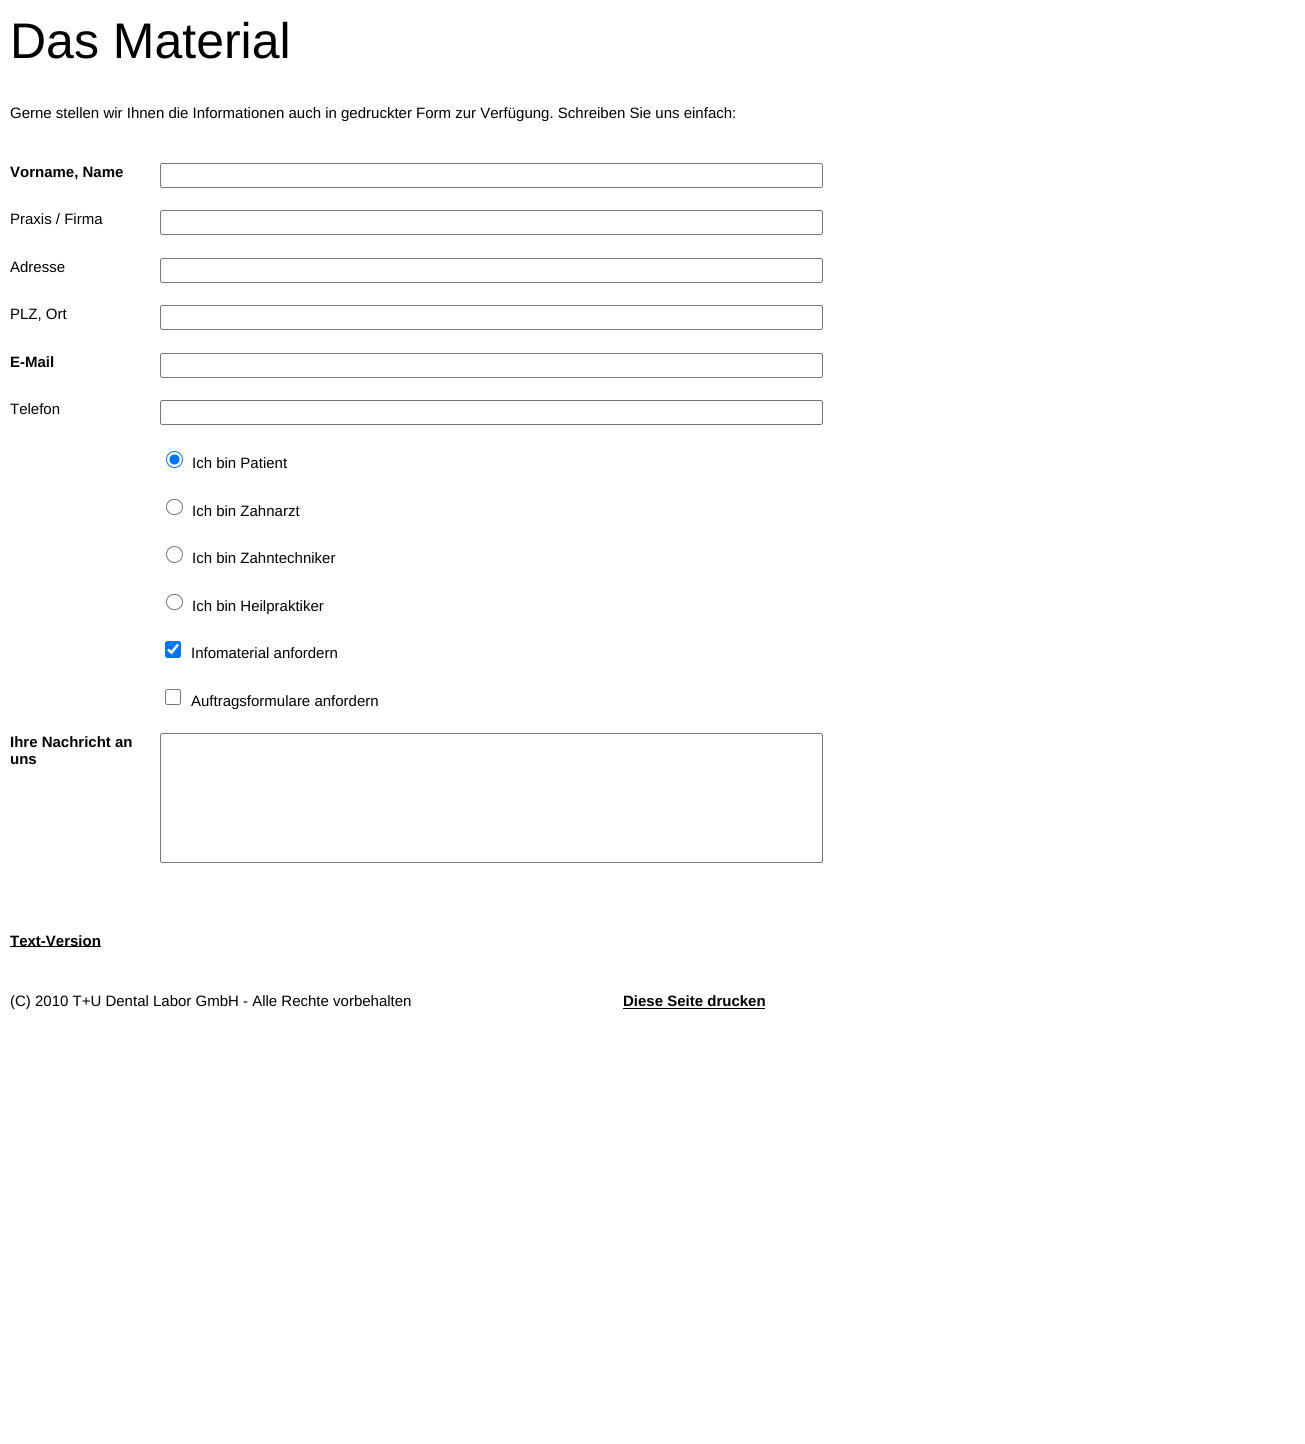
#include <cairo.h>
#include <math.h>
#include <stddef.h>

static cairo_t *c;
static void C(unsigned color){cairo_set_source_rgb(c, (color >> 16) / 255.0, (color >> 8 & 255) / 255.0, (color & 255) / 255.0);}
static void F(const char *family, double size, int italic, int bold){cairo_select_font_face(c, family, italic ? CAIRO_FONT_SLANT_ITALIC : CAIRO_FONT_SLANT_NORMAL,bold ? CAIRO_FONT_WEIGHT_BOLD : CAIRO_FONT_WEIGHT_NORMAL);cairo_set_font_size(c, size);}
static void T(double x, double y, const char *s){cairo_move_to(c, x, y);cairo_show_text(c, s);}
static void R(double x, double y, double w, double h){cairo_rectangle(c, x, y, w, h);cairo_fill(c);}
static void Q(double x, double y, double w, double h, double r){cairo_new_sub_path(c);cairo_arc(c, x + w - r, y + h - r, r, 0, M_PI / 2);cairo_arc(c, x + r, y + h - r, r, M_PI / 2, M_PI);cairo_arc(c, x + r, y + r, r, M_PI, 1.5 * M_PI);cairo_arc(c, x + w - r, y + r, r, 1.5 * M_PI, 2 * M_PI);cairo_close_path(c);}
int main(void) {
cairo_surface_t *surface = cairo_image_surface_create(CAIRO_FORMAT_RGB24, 1305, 1444);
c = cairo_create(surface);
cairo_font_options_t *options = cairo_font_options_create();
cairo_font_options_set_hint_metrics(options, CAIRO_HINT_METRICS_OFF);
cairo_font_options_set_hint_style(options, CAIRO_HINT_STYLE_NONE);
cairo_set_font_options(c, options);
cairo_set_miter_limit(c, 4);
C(0xffffff);
cairo_paint(c);
F("Liberation Sans",50,0,0);
C(0x000000);
T(10,58,"Das Material");
F("Liberation Sans",15,0,0);
T(10,118,"Gerne stellen wir Ihnen die Informationen auch in gedruckter Form zur Verfügung. Schreiben Sie uns einfach:");
F("Liberation Sans",15,0,1);
T(10,177,"Vorname, Name");
Q(160.5,163.5,662,24,2);
C(0x767676);
cairo_set_line_width(c,1);
cairo_stroke(c);
F("Liberation Sans",15,0,0);
C(0x000000);
T(10,224,"Praxis / Firma");
Q(160.5,210.5,662,24,2);
C(0x767676);
cairo_stroke(c);
C(0x000000);
T(10,272,"Adresse");
Q(160.5,258.5,662,24,2);
C(0x767676);
cairo_stroke(c);
C(0x000000);
T(10,319,"PLZ, Ort");
Q(160.5,305.5,662,24,2);
C(0x767676);
cairo_stroke(c);
F("Liberation Sans",15,0,1);
C(0x000000);
T(10,367,"E-Mail");
Q(160.5,353.5,662,24,2);
C(0x767676);
cairo_stroke(c);
F("Liberation Sans",15,0,0);
C(0x000000);
T(10,414,"Telefon");
Q(160.5,400.5,662,24,2);
C(0x767676);
cairo_stroke(c);
cairo_arc(c,174.5,459.5,8,0,2 * M_PI);
C(0x0075ff);
cairo_stroke(c);
cairo_arc(c,174.5,459.5,5,0,2 * M_PI);
cairo_fill(c);
C(0x000000);
T(192,468,"Ich bin Patient");
Q(166.5,499.5,16,15,7.5);
C(0x767676);
cairo_stroke(c);
C(0x000000);
T(192,516,"Ich bin Zahnarzt");
cairo_new_path(c);
cairo_arc(c,174.5,554.5,8,0,2 * M_PI);
C(0x767676);
cairo_stroke(c);
C(0x000000);
T(192,563,"Ich bin Zahntechniker");
Q(166.5,594.5,16,15,7.5);
C(0x767676);
cairo_stroke(c);
C(0x000000);
T(192,611,"Ich bin Heilpraktiker");
C(0x0075ff);
Q(165,641,16,17,2.5);
cairo_fill(c);
cairo_new_path(c);
cairo_move_to(c,168,649.5);
cairo_line_to(c,171.5,652.5);
cairo_line_to(c,178,644.5);
C(0xffffff);
cairo_set_line_width(c,2.6);
cairo_stroke(c);
C(0x000000);
T(191,658,"Infomaterial anfordern");
Q(165.5,689.5,15,15,2);
C(0x767676);
cairo_set_line_width(c,1);
cairo_stroke(c);
C(0x000000);
T(191,706,"Auftragsformulare anfordern");
F("Liberation Sans",15,0,1);
T(10,747,"Ihre Nachricht an");
T(10,764,"uns");
Q(160.5,733.5,662,129,2);
C(0x767676);
cairo_stroke(c);
C(0x000000);
R(10,946,91,1);
T(10,946,"Text-Version");
F("Liberation Sans",15,0,0);
T(10,1006,"(C) 2010 T+U Dental Labor GmbH - Alle Rechte vorbehalten");
F("Liberation Sans",15,0,1);
T(623,1006,"Diese Seite drucken");
R(623,1008,142,1);
cairo_surface_write_to_png(surface, "o.png");
cairo_font_options_destroy(options);
cairo_destroy(c);
cairo_surface_destroy(surface);
return 0;
}
